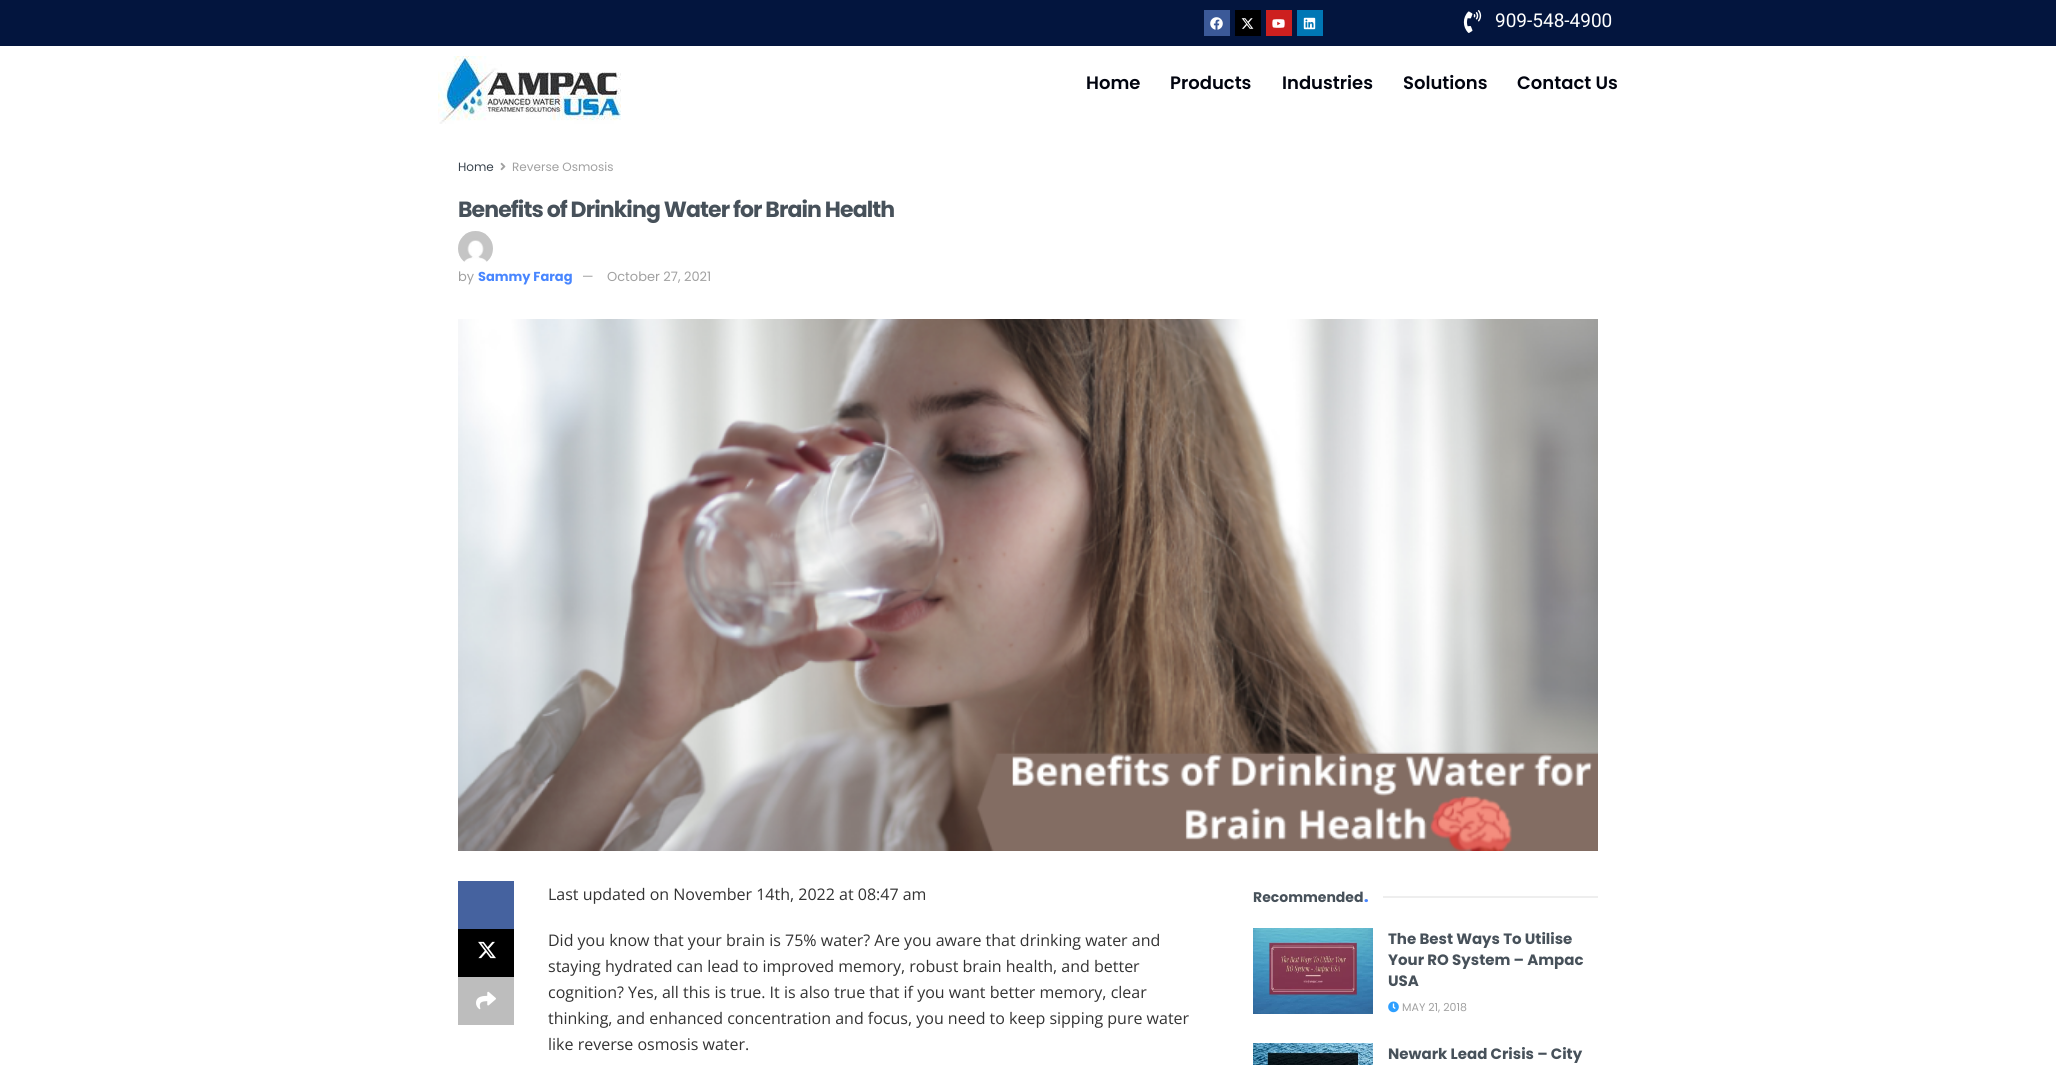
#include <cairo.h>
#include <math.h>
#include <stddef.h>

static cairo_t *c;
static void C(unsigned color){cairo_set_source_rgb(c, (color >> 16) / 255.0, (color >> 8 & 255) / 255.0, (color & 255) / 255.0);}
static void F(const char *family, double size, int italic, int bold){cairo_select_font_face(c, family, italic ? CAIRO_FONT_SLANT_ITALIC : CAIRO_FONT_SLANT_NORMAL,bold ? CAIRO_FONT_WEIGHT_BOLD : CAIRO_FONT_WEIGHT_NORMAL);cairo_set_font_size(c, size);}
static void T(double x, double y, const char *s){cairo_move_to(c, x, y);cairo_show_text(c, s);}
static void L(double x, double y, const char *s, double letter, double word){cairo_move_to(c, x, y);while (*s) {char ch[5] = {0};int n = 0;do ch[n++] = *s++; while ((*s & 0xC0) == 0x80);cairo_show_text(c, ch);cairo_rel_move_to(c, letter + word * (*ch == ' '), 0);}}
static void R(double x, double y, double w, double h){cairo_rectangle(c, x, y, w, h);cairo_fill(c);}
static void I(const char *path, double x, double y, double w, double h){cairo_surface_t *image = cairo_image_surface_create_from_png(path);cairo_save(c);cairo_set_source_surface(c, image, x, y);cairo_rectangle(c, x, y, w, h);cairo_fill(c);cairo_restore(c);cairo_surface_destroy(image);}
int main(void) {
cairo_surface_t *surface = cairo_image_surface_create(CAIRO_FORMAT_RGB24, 2056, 1065);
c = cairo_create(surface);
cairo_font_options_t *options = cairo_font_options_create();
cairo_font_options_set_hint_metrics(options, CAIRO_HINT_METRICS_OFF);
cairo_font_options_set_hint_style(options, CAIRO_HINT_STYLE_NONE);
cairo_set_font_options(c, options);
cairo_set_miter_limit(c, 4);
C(0xffffff);
cairo_paint(c);
C(0x03153e);
R(0,0,2056,46);
C(0x3b5998);
R(1204,10,26,26);
I("1.png",1210,17,13,13);
C(0x000000);
R(1235,10,26,26);
I("2.png",1241,18,13,11);
C(0xcd201f);
R(1266,10,26,26);
I("3.png",1272,19,13,9);
C(0x0077b5);
R(1297,10,26,26);
I("4.png",1303,17,13,13);
I("5.png",1463,10,19,23);
F("Roboto",19,0,0);
C(0xffffff);
T(1495,27,"909-548-4900");
I("6.png",438,56,183,68);
F("Poppins SemiBold",18,0,0);
C(0x01040f);
T(1086,89,"Home");
T(1170,89,"Products");
T(1282,89,"Industries");
T(1403,89,"Solutions");
T(1517,89,"Contact Us");
F("Poppins",12,0,0);
C(0x39434d);
T(458,171,"Home");
I("7.png",500,162,6,9);
C(0xa0a0a0);
T(512,171,"Reverse Osmosis");
F("Poppins",22,0,1);
C(0x47515a);
L(458,217,"Benefits of Drinking Water for Brain Health",-.9,0);
I("8.png",458,231,35,31);
F("Poppins",13,0,0);
C(0xa0a0a0);
T(458,281,"by");
F("Poppins",13,0,1);
C(0x4886ff);
T(478,281,"Sammy Farag");
F("Poppins",13,0,0);
C(0xa0a0a0);
T(582,281,"—");
T(607,281,"October 27, 2021");
I("9.png",458,319,1140,532);
C(0x45629f);
R(458,881,56,48);
C(0x000000);
R(458,929,56,48);
I("10.png",478,941,18,18);
C(0xbdbdbd);
R(458,977,56,48);
I("11.png",476,991,20,19);
F("Open Sans",16,0,0);
C(0x333333);
T(548,900,"Last updated on November 14th, 2022 at 08:47 am");
T(548,946,"Did you know that your brain is 75% water? Are you aware that drinking water and");
T(548,972,"staying hydrated can lead to improved memory, robust brain health, and better");
T(548,998,"cognition? Yes, all this is true. It is also true that if you want better memory, clear");
T(548,1024,"thinking, and enhanced concentration and focus, you need to keep sipping pure water");
T(548,1050,"like reverse osmosis water.");
F("Poppins",14,0,1);
C(0x47515a);
T(1253,902,"Recommended");
F("Poppins Black",14,0,0);
C(0x4886ff);
T(1364,902,".");
C(0xeeeeee);
R(1383,896,215,2);
I("12.png",1253,928,120,86);
F("Poppins",15,0,1);
C(0x47515a);
T(1388,944,"The Best Ways To Utilise");
T(1388,965,"Your RO System – Ampac");
T(1388,986,"USA");
I("13.png",1388,1001,11,12);
F("Poppins",11,0,0);
C(0xa0a0a0);
T(1402,1011,"MAY 21, 2018");
I("14.png",1253,1043,120,22);
F("Poppins",15,0,1);
C(0x47515a);
T(1388,1059,"Newark Lead Crisis – City");
cairo_surface_write_to_png(surface, "o.png");
cairo_font_options_destroy(options);
cairo_destroy(c);
cairo_surface_destroy(surface);
return 0;
}
